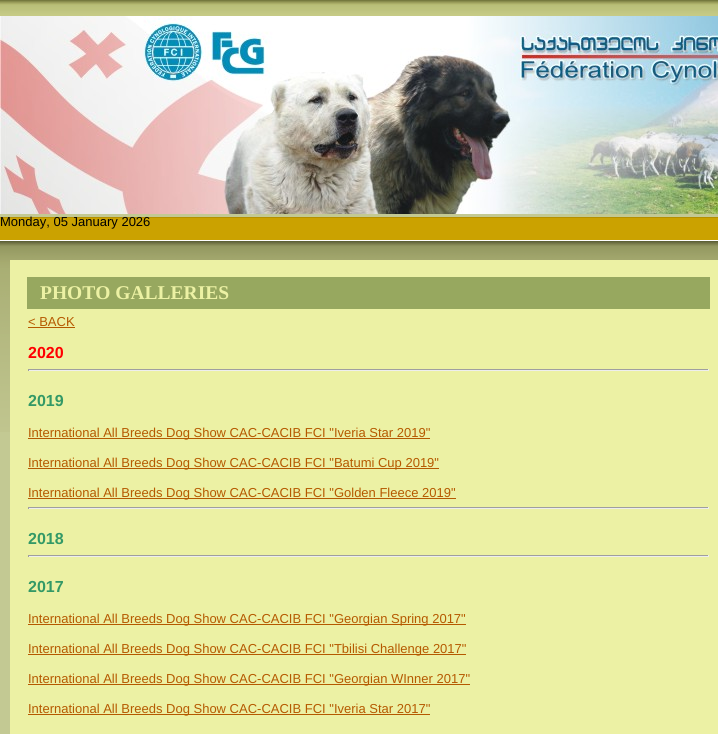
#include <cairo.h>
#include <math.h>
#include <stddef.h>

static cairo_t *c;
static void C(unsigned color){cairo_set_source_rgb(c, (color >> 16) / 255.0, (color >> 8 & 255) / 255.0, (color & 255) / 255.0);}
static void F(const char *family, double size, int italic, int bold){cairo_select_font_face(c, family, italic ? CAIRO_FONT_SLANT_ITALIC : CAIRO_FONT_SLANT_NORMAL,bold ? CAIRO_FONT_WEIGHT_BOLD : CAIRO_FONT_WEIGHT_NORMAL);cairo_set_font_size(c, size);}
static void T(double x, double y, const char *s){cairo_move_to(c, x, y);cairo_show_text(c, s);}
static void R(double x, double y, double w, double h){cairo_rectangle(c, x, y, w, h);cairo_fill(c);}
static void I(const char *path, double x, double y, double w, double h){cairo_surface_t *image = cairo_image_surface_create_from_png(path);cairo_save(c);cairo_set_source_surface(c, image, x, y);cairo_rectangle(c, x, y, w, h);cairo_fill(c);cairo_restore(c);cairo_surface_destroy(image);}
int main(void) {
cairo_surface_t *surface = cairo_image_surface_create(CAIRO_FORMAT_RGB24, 718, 734);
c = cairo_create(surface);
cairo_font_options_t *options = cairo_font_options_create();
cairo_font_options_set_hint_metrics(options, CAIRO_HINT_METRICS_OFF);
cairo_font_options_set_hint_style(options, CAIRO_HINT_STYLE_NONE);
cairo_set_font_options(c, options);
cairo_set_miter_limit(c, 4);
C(0xc3c993);
cairo_paint(c);
I("1.png",0,0,718,16);
I("2.png",0,16,718,198);
I("3.png",0,217,718,215);
F("Liberation Sans",13,0,0);
C(0x000000);
T(0,226,"Monday, 05 January 2026");
C(0xecf1a4);
R(10,260,708,474);
C(0x97a85f);
R(27,277,683,32);
F("Liberation Serif",19.5,0,1);
C(0xecf1a4);
T(40,299,"PHOTO GALLERIES");
F("Liberation Sans",13,0,0);
C(0xb55900);
T(28,326,"< BACK");
R(28,327,47,1);
F("Liberation Sans",16,0,1);
C(0xff0000);
T(28,358,"2020");
C(0x9f9f9f);
R(28,369,681,1);
C(0xeeeeee);
R(708,369,1,2);
R(28,370,681,1);
C(0x9f9f9f);
R(28,369,1,2);
C(0x339966);
T(28,406,"2019");
C(0xb55900);
R(28,438,402,1);
F("Liberation Sans",13,0,0);
T(28,437,"International All Breeds Dog Show CAC-CACIB FCI \"Iveria Star 2019\"");
R(28,468,411,1);
T(28,467,"International All Breeds Dog Show CAC-CACIB FCI \"Batumi Cup 2019\"");
R(28,498,428,1);
T(28,497,"International All Breeds Dog Show CAC-CACIB FCI \"Golden Fleece 2019\"");
C(0x9f9f9f);
R(28,507,681,1);
C(0xeeeeee);
R(708,507,1,2);
R(28,508,681,1);
C(0x9f9f9f);
R(28,507,1,2);
F("Liberation Sans",16,0,1);
C(0x339966);
T(28,544,"2018");
C(0x9f9f9f);
R(28,555,681,1);
C(0xeeeeee);
R(708,555,1,2);
R(28,556,681,1);
C(0x9f9f9f);
R(28,555,1,2);
C(0x339966);
T(28,592,"2017");
C(0xb55900);
R(28,624,438,1);
F("Liberation Sans",13,0,0);
T(28,623,"International All Breeds Dog Show CAC-CACIB FCI \"Georgian Spring 2017\"");
R(28,654,438,1);
T(28,653,"International All Breeds Dog Show CAC-CACIB FCI \"Tbilisi Challenge 2017\"");
R(28,684,442,1);
T(28,683,"International All Breeds Dog Show CAC-CACIB FCI \"Georgian WInner 2017\"");
R(28,714,402,1);
T(28,713,"International All Breeds Dog Show CAC-CACIB FCI \"Iveria Star 2017\"");
cairo_surface_write_to_png(surface, "o.png");
cairo_font_options_destroy(options);
cairo_destroy(c);
cairo_surface_destroy(surface);
return 0;
}
